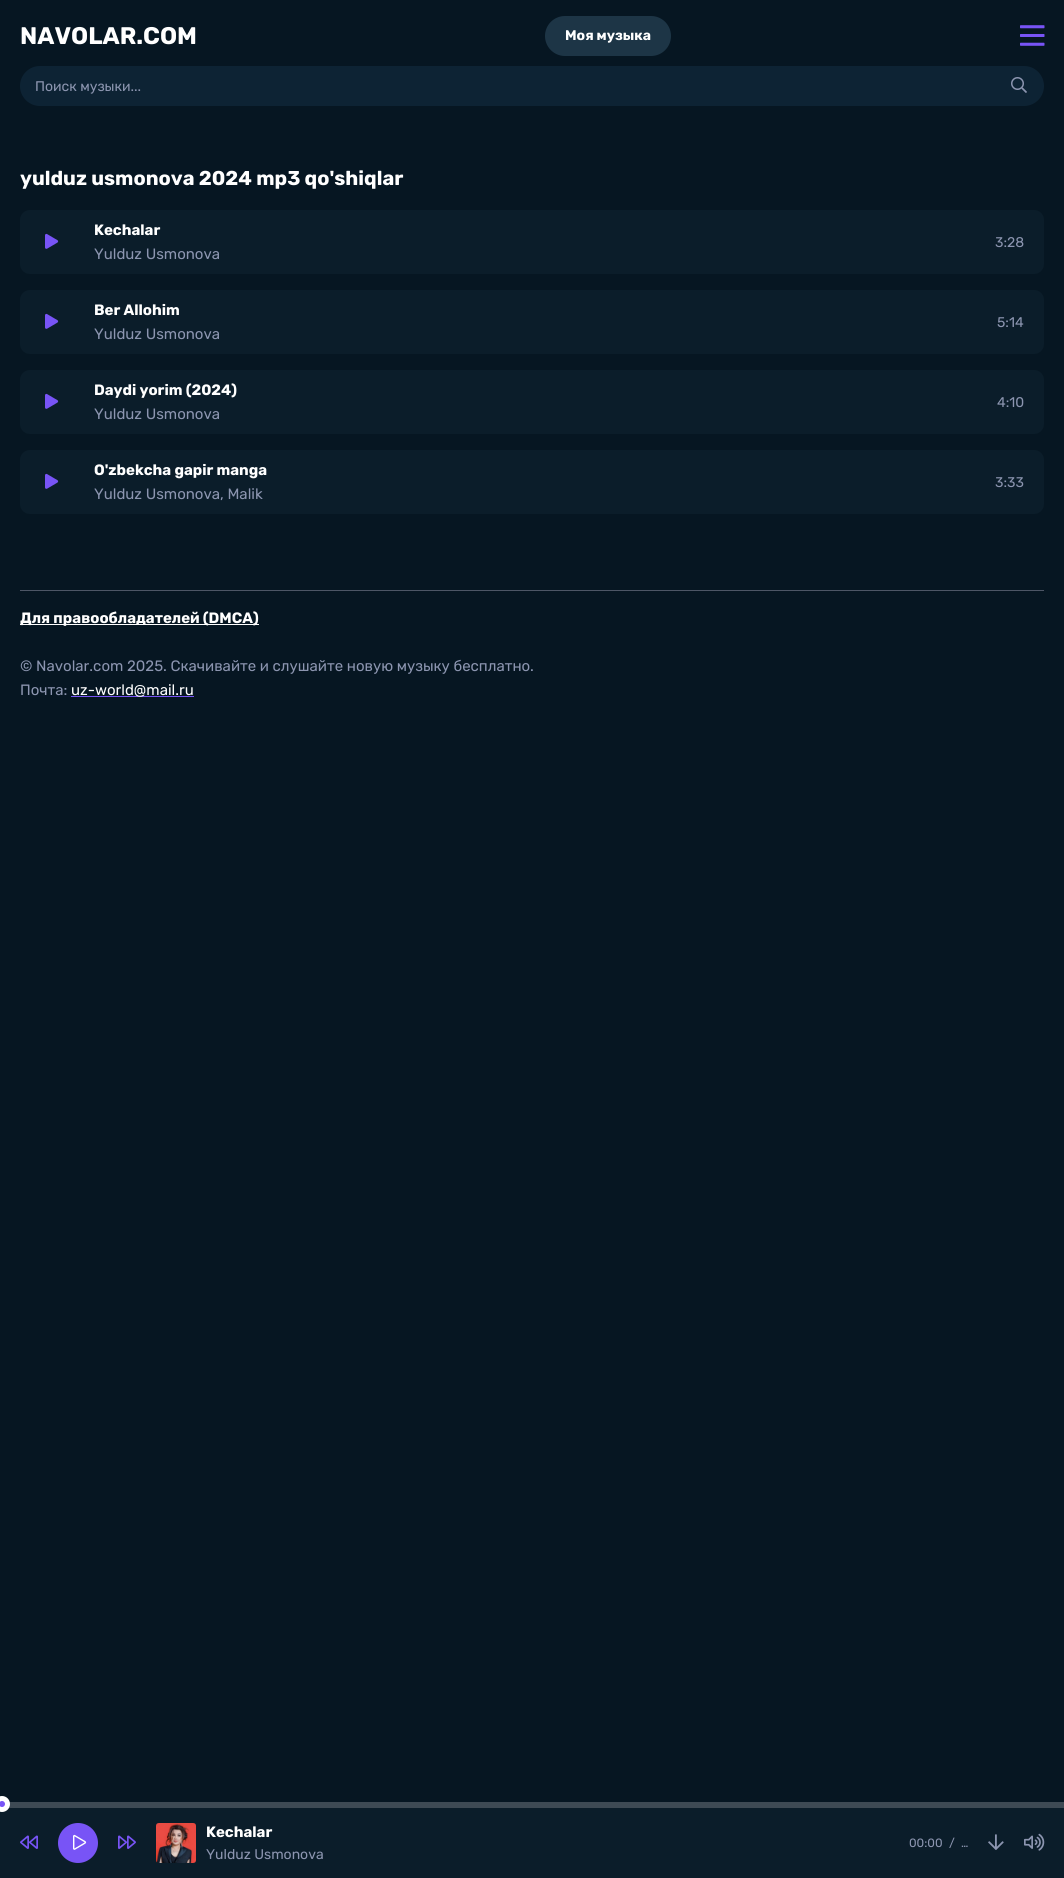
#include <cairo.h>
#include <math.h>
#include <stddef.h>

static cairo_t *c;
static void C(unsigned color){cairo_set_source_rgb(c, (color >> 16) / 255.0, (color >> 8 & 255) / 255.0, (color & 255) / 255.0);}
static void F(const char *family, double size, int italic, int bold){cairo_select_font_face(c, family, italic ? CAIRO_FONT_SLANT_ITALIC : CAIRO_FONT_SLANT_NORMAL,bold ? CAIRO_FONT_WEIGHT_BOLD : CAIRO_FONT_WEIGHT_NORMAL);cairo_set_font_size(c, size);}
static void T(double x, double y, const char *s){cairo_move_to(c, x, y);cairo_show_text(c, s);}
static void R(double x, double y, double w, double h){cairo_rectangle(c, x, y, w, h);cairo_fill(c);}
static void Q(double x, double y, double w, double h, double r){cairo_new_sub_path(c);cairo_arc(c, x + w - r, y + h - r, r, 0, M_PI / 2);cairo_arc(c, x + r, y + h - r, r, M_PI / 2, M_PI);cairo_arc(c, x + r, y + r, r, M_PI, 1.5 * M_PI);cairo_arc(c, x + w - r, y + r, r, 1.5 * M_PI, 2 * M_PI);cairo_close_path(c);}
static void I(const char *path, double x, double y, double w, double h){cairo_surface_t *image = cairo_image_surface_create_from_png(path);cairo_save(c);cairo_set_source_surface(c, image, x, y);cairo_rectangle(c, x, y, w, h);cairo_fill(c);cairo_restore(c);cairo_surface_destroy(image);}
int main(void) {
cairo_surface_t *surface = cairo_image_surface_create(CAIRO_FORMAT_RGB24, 1064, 1878);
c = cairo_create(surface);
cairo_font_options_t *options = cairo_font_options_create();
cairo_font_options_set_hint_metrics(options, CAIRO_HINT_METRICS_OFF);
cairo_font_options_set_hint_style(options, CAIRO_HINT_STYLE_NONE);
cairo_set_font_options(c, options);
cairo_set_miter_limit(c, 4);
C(0x061622);
cairo_paint(c);
F("Rubik",24,0,1);
C(0xffffff);
T(20,44,"NAVOLAR.COM");
C(0x1d3546);
Q(545,16,126,40,20);
cairo_fill(c);
F("Rubik",14,0,1);
C(0xffffff);
T(565,40,"Моя музыка");
I("1.png",1020,25,25,21);
C(0x0d2334);
Q(20,66,1024,40,20);
cairo_fill(c);
F("Rubik",14,0,0);
C(0x8c95b0);
T(35,91,"Поиск музыки...");
I("2.png",1011,77,16,16);
F("Rubik",20,0,1);
C(0xffffff);
T(20,185,"yulduz usmonova 2024 mp3 qo'shiqlar");
C(0x0b1d2a);
Q(20,210,1024,64,10);
cairo_fill(c);
I("3.png",45,233,14,16);
F("Rubik",15,0,1);
C(0xffffff);
T(94,235,"Kechalar");
F("Rubik",15,0,0);
C(0x8c95b0);
T(94,259,"Yulduz Usmonova");
F("Rubik",14,0,0);
T(995,247,"3:28");
C(0x0b1d2a);
Q(20,290,1024,64,10);
cairo_fill(c);
I("3.png",45,313,14,16);
F("Rubik",15,0,1);
C(0xffffff);
T(94,315,"Ber Allohim");
F("Rubik",15,0,0);
C(0x8c95b0);
T(94,339,"Yulduz Usmonova");
F("Rubik",14,0,0);
T(997,327,"5:14");
C(0x0b1d2a);
Q(20,370,1024,64,10);
cairo_fill(c);
I("3.png",45,393,14,16);
F("Rubik",15,0,1);
C(0xffffff);
T(94,395,"Daydi yorim (2024)");
F("Rubik",15,0,0);
C(0x8c95b0);
T(94,419,"Yulduz Usmonova");
F("Rubik",14,0,0);
T(997,407,"4:10");
C(0x0b1d2a);
Q(20,450,1024,64,10);
cairo_fill(c);
I("3.png",45,473,14,16);
F("Rubik",15,0,1);
C(0xffffff);
T(94,475,"O'zbekcha gapir manga");
F("Rubik",15,0,0);
C(0x8c95b0);
T(94,499,"Yulduz Usmonova, Malik");
F("Rubik",14,0,0);
T(995,487,"3:33");
C(0x4d5666);
R(20,590,1024,1);
C(0xffffff);
R(20,624,239,1);
F("Rubik",15,0,1);
T(20,623,"Для правообладателей (DMCA)");
F("Rubik",15,0,0);
C(0x8c95b0);
T(20,671,"© Navolar.com 2025. Скачивайте и слушайте новую музыку бесплатно.");
T(20,695,"Почта:");
C(0x7854f6);
R(71,696,123,1);
C(0xffffff);
T(71,695,"uz-world@mail.ru");
C(0x0b1d2a);
R(0,1808,1064,70);
C(0x3e4a54);
R(0,1802,1064,6);
C(0x7854f6);
cairo_new_path(c);
cairo_arc(c,2,1804,5.5,0,2 * M_PI);
cairo_fill_preserve(c);
C(0xffffff);
cairo_set_line_width(c,5);
cairo_stroke(c);
I("4.png",20,1835,18,14);
C(0x7854f6);
cairo_arc(c,78,1843,20,0,2 * M_PI);
cairo_fill(c);
I("5.png",73,1834,14,16);
I("6.png",118,1835,18,14);
I("7.png",156,1823,40,40);
F("Rubik",15,0,1);
C(0xffffff);
T(206,1837,"Kechalar");
F("Rubik",14,0,0);
C(0x8c95b0);
T(206,1859,"Yulduz Usmonova");
F("Rubik",12,0,0);
T(909,1847,"00:00");
T(949,1847,"/");
T(961,1847,"…");
I("8.png",988,1834,16,16);
I("9.png",1024,1833,21,18);
cairo_surface_write_to_png(surface, "o.png");
cairo_font_options_destroy(options);
cairo_destroy(c);
cairo_surface_destroy(surface);
return 0;
}
